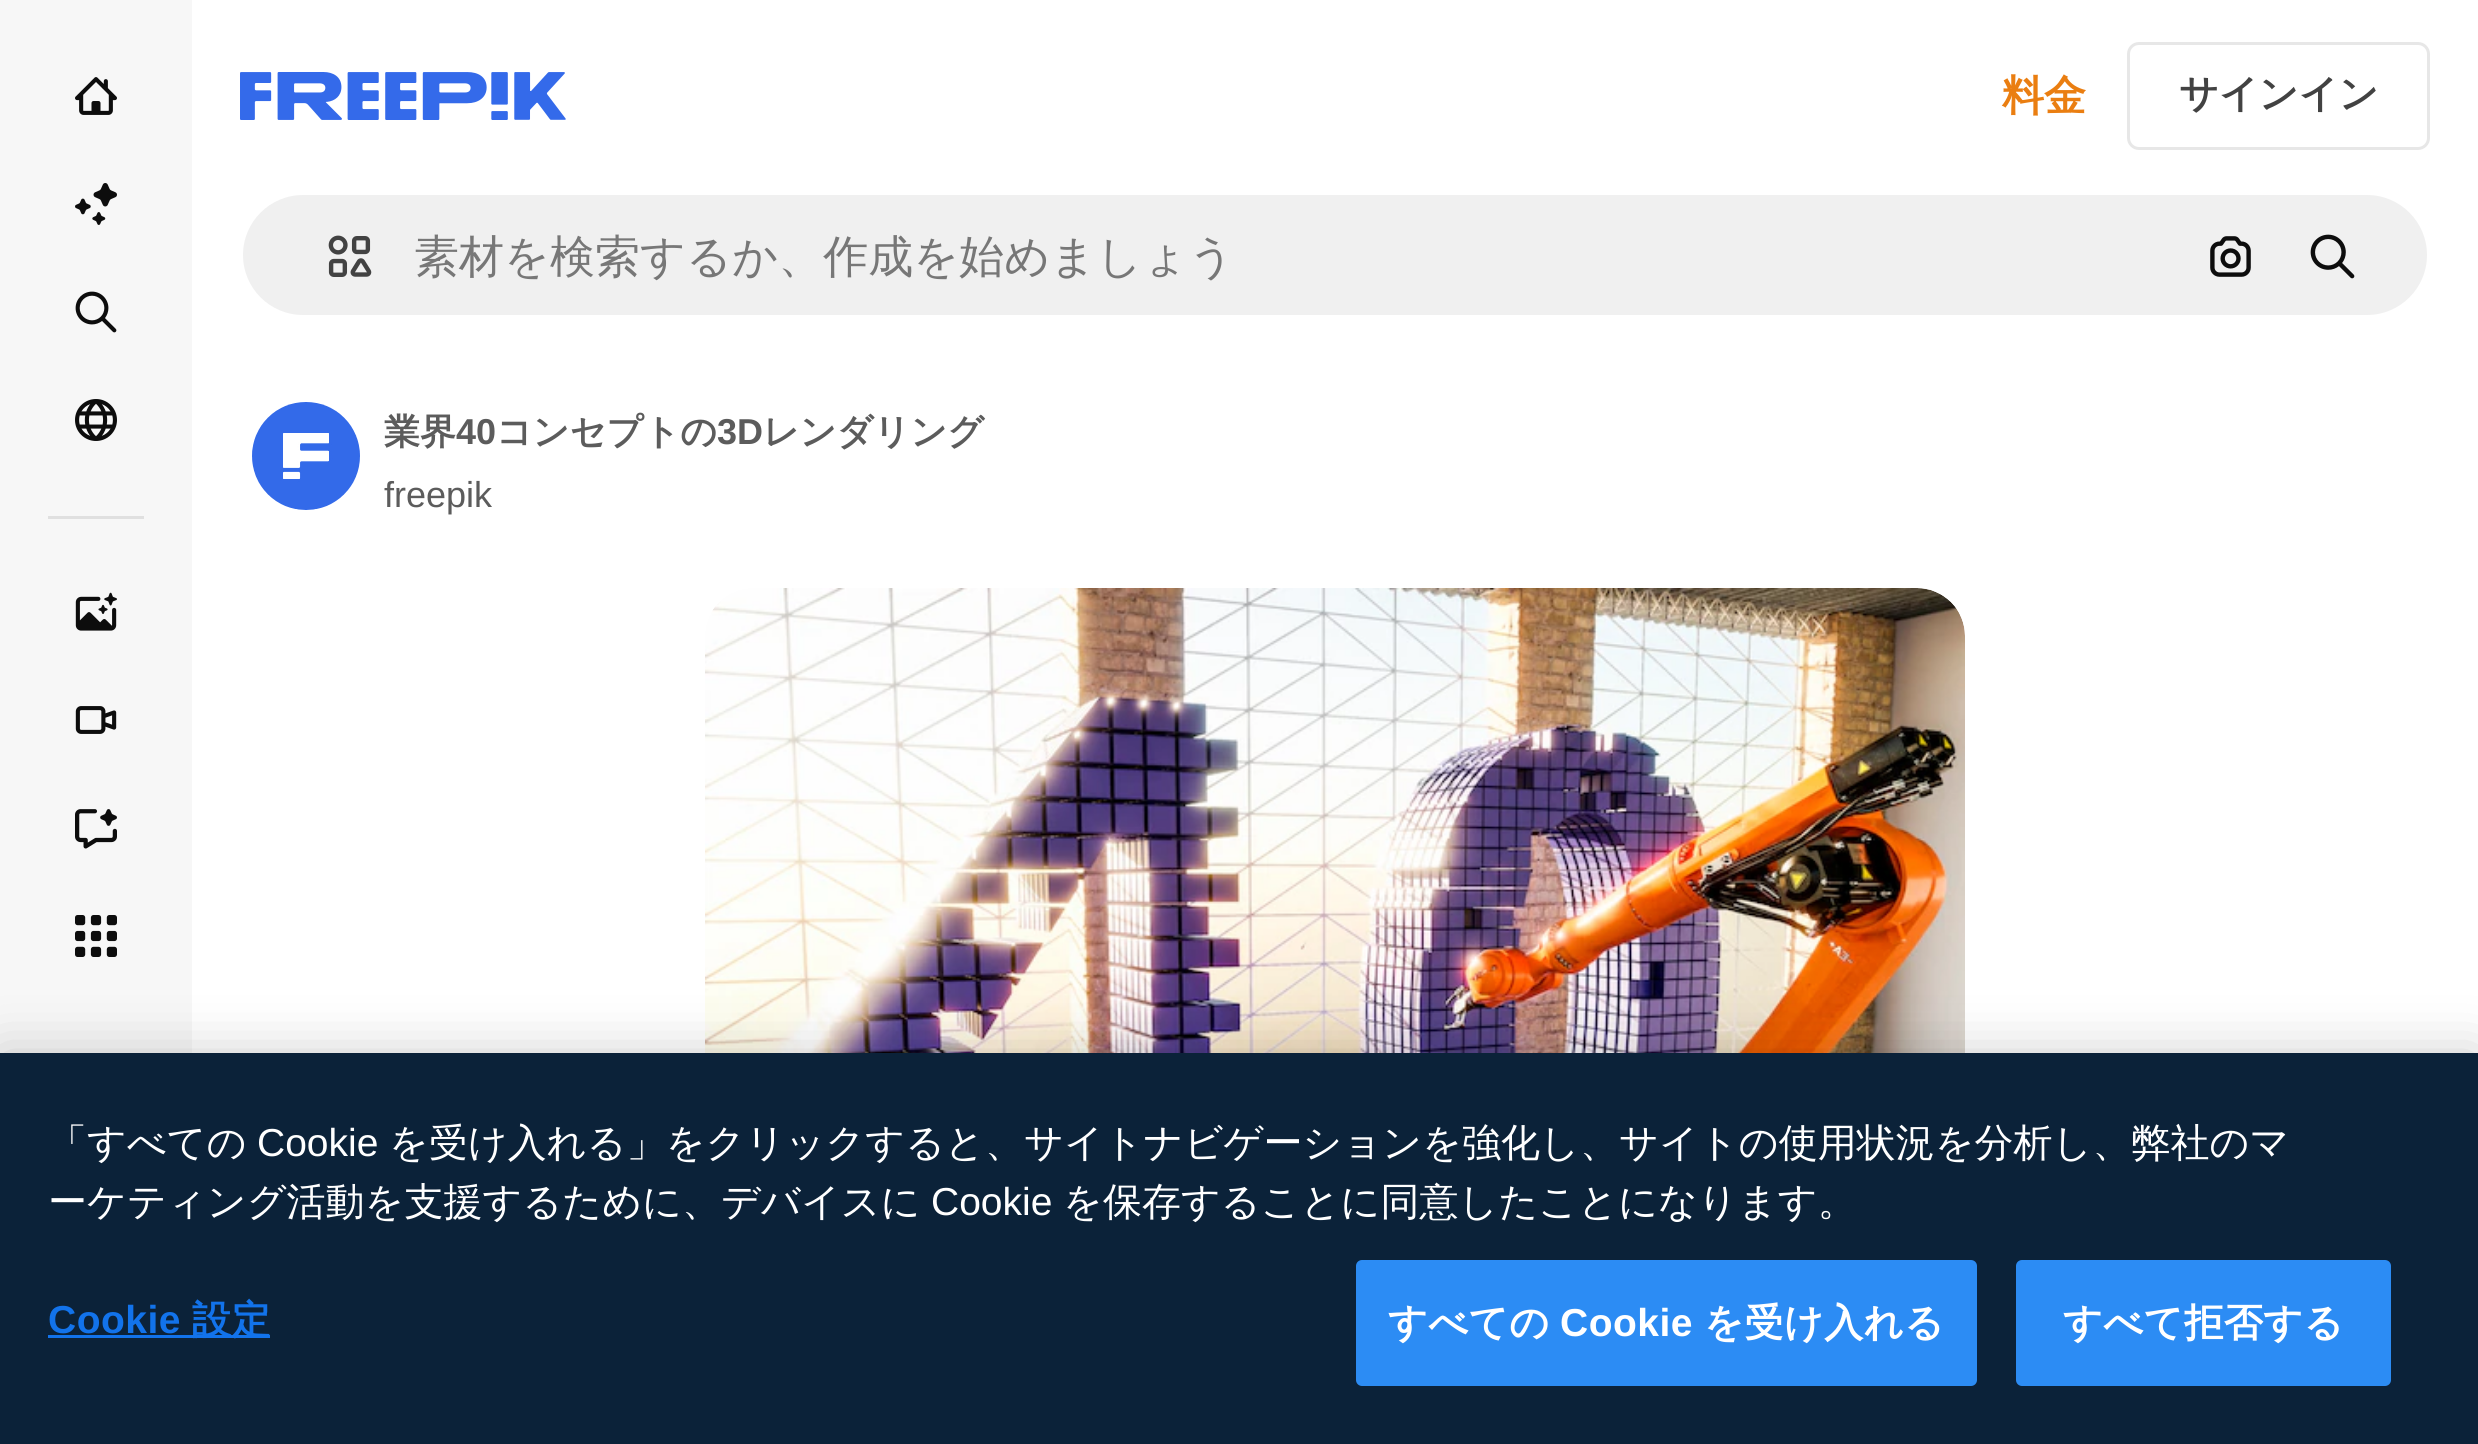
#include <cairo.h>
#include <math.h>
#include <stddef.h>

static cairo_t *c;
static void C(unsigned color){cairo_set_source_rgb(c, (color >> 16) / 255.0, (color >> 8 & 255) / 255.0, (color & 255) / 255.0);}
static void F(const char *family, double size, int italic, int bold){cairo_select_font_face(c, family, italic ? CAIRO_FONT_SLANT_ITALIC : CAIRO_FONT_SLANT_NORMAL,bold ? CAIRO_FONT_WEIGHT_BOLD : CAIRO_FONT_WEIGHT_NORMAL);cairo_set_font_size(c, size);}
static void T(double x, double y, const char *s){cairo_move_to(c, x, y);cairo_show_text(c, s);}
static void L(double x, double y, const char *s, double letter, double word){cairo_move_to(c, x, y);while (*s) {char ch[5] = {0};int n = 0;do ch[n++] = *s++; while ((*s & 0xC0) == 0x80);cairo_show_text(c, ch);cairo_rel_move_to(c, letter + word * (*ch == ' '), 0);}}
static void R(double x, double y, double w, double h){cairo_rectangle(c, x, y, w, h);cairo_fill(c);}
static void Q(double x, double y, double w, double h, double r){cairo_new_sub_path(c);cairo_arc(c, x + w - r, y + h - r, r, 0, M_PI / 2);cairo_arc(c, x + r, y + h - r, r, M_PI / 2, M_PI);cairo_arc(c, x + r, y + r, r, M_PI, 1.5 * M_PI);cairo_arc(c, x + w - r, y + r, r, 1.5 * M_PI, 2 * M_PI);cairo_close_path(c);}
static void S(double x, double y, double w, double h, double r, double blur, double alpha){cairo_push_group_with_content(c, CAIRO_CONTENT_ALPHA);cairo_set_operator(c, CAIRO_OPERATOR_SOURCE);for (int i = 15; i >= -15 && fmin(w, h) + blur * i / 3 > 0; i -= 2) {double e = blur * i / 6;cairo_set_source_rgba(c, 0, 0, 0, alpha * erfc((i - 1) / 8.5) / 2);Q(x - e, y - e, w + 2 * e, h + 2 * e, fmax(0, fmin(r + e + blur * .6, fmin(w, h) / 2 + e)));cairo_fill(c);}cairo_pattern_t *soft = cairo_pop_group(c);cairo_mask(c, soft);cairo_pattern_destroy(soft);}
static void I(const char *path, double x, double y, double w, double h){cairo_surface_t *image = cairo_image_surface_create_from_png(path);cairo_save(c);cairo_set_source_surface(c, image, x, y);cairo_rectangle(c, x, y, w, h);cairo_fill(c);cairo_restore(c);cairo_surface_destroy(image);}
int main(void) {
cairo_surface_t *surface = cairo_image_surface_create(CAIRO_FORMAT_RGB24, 2478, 1444);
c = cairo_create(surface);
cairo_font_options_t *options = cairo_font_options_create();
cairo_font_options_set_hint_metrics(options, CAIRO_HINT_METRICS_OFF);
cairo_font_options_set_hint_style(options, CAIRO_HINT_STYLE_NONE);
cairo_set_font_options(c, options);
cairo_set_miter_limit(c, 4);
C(0xffffff);
cairo_paint(c);
C(0xf7f7f7);
R(0,0,192,1053);
I("1.png",75,77,42,38);
I("2.png",75,183,42,42);
I("3.png",75,291,42,42);
I("4.png",75,399,42,42);
C(0xe0e0e0);
R(48,516,96,3);
I("5.png",75,592,42,39);
I("6.png",75,706,42,28);
I("7.png",75,809,42,40);
I("8.png",75,915,42,42);
I("9.png",240,72,326,48);
F("WenQuanYi Zen Hei",42,0,1);
C(0xea7e11);
T(2002,110,"料金");
Q(2128.5,43.5,300,105,10.5);
C(0xe7e7e7);
cairo_set_line_width(c,3);
cairo_stroke(c);
F("WenQuanYi Zen Hei",39,0,1);
C(0x424242);
T(2179,107,"サインイン");
C(0xf0f0f0);
Q(241.5,193.5,2187,123,61.5);
cairo_fill_preserve(c);
C(0xffffff);
cairo_stroke(c);
I("10.png",328,235,44,42);
F("WenQuanYi Zen Hei Medium",45,0,0);
C(0x777777);
T(414,272,"素材を検索するか、作成を始めましょう");
I("11.png",2210,236,41,41);
I("12.png",2310,234,45,45);
I("13.png",252,402,108,108);
F("WenQuanYi Zen Hei",36,0,1);
C(0x5c5c5c);
T(384,444,"業界");
F("Liberation Sans",36,0,1);
T(456,444,"40");
F("WenQuanYi Zen Hei",36,0,1);
T(496,444,"コンセプトの");
F("Liberation Sans",36,0,1);
T(717,444,"3D");
F("WenQuanYi Zen Hei",36,0,1);
T(763,444,"レンダリング");
F("Liberation Sans",36,0,0);
T(384,507,"freepik");
I("14.png",705,588,1260,465);
C(0x000000);
S(0,1053,2478,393,0,27,.2);
C(0x0b2239);
R(0,1053,2478,391);
F("WenQuanYi Zen Hei Medium",39,0,0);
C(0xffffff);
T(48,1156,"「すべての");
F("Liberation Sans",39,0,0);
T(257,1156,"Cookie");
F("WenQuanYi Zen Hei Medium",39,0,0);
T(389,1156,"を受け入れる」をクリックすると、サイトナビゲーションを強化し、サイトの使用状況を分析し、弊社のマ");
T(48,1215,"ーケティング活動を支援するために、デバイスに");
F("Liberation Sans",39,0,0);
T(931,1215,"Cookie");
F("WenQuanYi Zen Hei Medium",39,0,0);
T(1063,1215,"を保存することに同意したことになります。");
F("Liberation Sans",39,0,1);
C(0x1273eb);
L(48,1333,"Cookie",.5,0);
R(48,1335,222,3);
F("WenQuanYi Zen Hei",39,0,1);
L(192,1333,"設定",.5,0);
C(0x2c8cf4);
Q(1357.5,1261.5,618,123,4.5);
cairo_fill_preserve(c);
cairo_stroke(c);
C(0xffffff);
L(1388,1336,"すべての",.5,0);
F("Liberation Sans",39,0,1);
L(1560,1336,"Cookie",.5,0);
F("WenQuanYi Zen Hei",39,0,1);
L(1704,1336,"を受け入れる",.5,0);
C(0x2c8cf4);
Q(2017.5,1261.5,372,123,4.5);
cairo_fill_preserve(c);
cairo_stroke(c);
C(0xffffff);
L(2063,1336,"すべて拒否する",.5,0);
cairo_surface_write_to_png(surface, "o.png");
cairo_font_options_destroy(options);
cairo_destroy(c);
cairo_surface_destroy(surface);
return 0;
}
